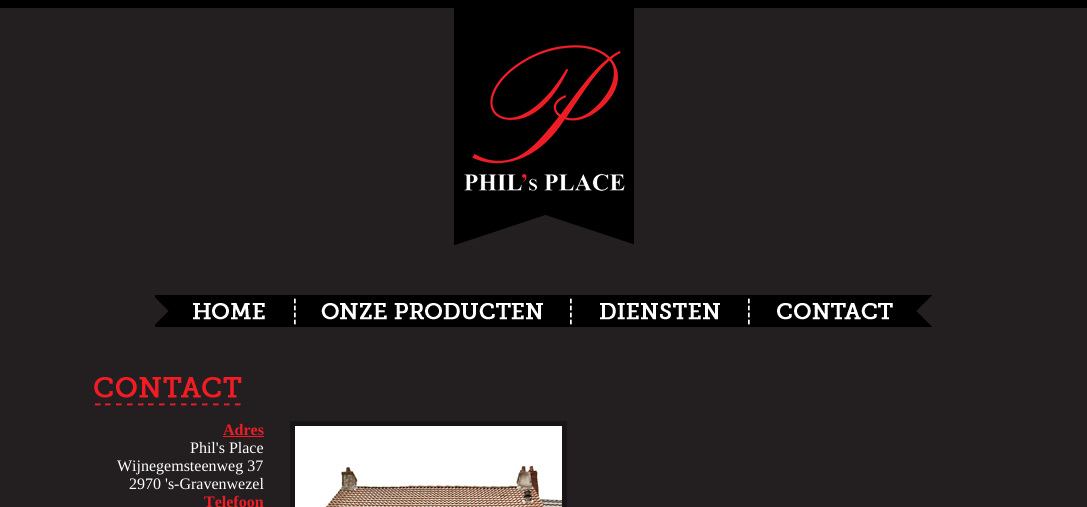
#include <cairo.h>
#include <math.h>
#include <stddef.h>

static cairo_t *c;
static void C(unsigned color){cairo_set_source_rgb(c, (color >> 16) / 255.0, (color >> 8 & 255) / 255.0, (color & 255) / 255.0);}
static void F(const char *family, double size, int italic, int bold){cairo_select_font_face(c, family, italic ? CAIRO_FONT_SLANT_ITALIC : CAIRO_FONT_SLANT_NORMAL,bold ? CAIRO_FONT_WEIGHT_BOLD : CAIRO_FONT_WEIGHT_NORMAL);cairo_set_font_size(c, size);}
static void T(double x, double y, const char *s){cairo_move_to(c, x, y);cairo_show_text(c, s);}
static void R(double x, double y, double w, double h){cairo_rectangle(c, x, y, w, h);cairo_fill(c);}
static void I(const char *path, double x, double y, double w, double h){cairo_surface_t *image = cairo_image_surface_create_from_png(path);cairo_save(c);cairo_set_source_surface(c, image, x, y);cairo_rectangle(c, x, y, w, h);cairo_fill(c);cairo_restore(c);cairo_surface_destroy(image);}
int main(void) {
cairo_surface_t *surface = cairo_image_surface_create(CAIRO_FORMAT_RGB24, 1087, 507);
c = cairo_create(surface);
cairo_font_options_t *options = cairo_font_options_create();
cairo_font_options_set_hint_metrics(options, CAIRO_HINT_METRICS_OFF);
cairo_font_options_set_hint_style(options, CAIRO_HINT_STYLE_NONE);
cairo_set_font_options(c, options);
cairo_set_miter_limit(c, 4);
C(0x231f20);
cairo_paint(c);
I("1.png",454,8,180,237);
C(0x000000);
R(0,0,1087,8);
I("2.png",155,295,141,32);
I("3.png",296,295,276,32);
I("4.png",572,295,178,32);
I("5.png",750,295,182,32);
I("6.png",94,377,148,29);
F("Liberation Serif",16,0,1);
C(0xee1c25);
T(223,435,"Adres");
R(223,436,41,1);
F("Liberation Serif",16,0,0);
C(0xffffff);
T(190,453,"Phil's Place");
T(117,471,"Wijnegemsteenweg 37");
T(129,489,"2970 's-Gravenwezel");
F("Liberation Serif",16,0,1);
C(0xee1c25);
T(204,507,"Telefoon");
cairo_rectangle(c,292.5,423.5,272,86);
C(0x171516);
cairo_set_line_width(c,5);
cairo_stroke(c);
I("7.png",295,426,267,81);
cairo_surface_write_to_png(surface, "o.png");
cairo_font_options_destroy(options);
cairo_destroy(c);
cairo_surface_destroy(surface);
return 0;
}
